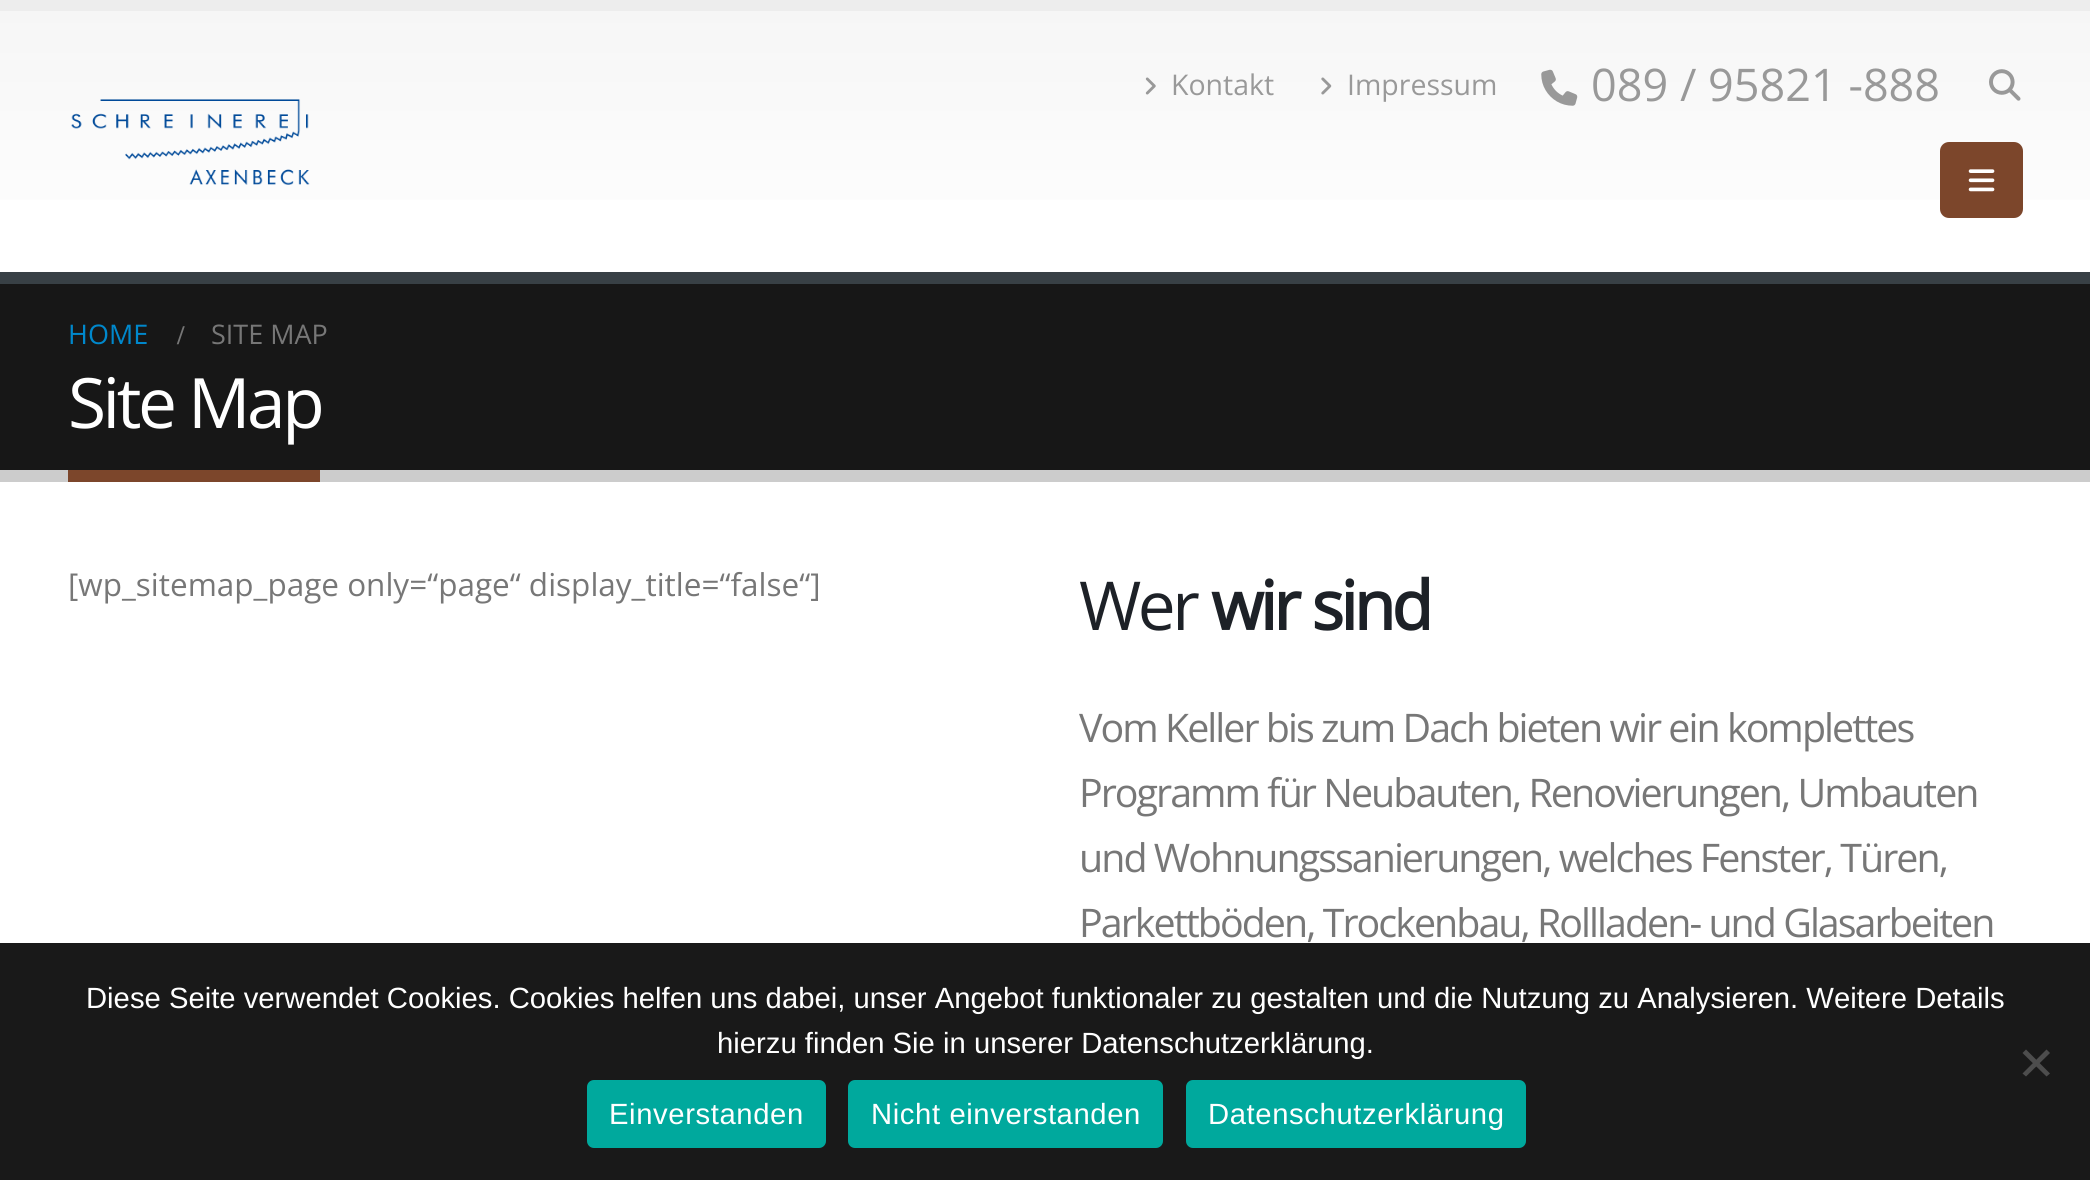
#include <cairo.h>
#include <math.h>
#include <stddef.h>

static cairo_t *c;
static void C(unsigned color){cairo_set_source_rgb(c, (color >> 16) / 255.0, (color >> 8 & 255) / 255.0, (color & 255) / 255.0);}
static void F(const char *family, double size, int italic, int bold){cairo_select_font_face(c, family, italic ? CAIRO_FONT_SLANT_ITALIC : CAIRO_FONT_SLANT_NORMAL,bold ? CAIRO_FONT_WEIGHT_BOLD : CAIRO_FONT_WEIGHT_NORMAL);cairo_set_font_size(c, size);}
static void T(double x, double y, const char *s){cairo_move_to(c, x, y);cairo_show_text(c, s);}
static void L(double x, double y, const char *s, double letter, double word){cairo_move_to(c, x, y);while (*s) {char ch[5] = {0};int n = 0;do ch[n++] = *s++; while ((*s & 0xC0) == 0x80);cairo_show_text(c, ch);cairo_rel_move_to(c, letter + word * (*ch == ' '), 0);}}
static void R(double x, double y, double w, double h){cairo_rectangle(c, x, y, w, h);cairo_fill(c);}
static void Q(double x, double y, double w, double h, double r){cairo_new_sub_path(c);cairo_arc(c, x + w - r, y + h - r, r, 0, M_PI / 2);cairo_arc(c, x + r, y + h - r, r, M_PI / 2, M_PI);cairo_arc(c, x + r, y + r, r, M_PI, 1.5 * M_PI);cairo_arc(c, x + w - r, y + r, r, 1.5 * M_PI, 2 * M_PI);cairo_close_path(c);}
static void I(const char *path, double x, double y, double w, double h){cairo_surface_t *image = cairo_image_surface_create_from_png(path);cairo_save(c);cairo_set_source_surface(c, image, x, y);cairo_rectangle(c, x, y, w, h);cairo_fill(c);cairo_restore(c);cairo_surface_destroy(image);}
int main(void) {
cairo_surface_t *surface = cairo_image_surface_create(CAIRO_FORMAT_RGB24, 2090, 1180);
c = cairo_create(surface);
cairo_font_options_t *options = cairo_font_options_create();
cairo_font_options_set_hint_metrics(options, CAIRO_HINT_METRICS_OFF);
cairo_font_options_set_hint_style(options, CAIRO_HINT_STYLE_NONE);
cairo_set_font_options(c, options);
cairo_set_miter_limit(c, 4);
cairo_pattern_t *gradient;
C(0xffffff);
cairo_paint(c);
C(0x191919);
R(0,943,2090,237);
C(0xededed);
R(0,0,2090,11);
gradient = cairo_pattern_create_linear(1045,11,1045,272);
cairo_pattern_add_color_stop_rgba(gradient,0,0.965,0.965,0.965,1);
cairo_pattern_add_color_stop_rgba(gradient,1,1,1,1,1);
cairo_set_source(c,gradient);
cairo_pattern_destroy(gradient);
R(0,11,2090,189);
I("1.png",1145,77,11,18);
F("Open Sans",28.5,0,0);
C(0x999999);
T(1171,95,"Kontakt");
I("2.png",1321,77,11,18);
T(1347,95,"Impressum");
I("3.png",1541,69,37,37);
F("Open Sans",45,0,0);
T(1591,101,"089 / 95821 -888");
I("4.png",1989,69,32,32);
C(0x7c462b);
Q(1940,142,83,76,9);
cairo_fill(c);
I("5.png",1968,169,27,23);
I("6.png",71,99,239,86);
C(0x171717);
R(0,284,2090,186);
C(0x384045);
R(0,272,2090,12);
C(0xcccccc);
R(0,470,2090,12);
F("Open Sans",27,0,0);
C(0x0088cc);
T(68,344,"HOME");
F("Liberation Serif",27,0,1);
C(0x777777);
T(177,344,"/");
F("Open Sans",27,0,0);
T(211,344,"SITE MAP");
F("Open Sans",69.5,0,0);
C(0xffffff);
L(68,428,"Site Map",-3.5,0);
C(0x7c462b);
R(68,470,252,12);
F("Open Sans",31.5,0,0);
C(0x777777);
T(68,596,"[wp_sitemap_page only=“page“ display_title=“false“]");
F("Open Sans",67.5,0,0);
C(0x1d2127);
L(1079,630,"Wer",-3.5,0);
F("Open Sans",67.5,0,1);
L(1211,630,"wir sind",-3.5,0);
F("Open Sans",39.4,0,0);
C(0x777777);
L(1079,742,"Vom Keller bis zum Dach bieten wir ein komplettes",-1.97,0);
L(1079,807,"Programm für Neubauten, Renovierungen, Umbauten",-1.97,0);
L(1079,872,"und Wohnungssanierungen, welches Fenster, Türen,",-1.97,0);
L(1079,937,"Parkettböden, Trockenbau, Rollladen- und Glasarbeiten",-1.97,0);
F("Liberation Sans",29.25,0,0);
C(0xffffff);
T(86,1008,"Diese Seite verwendet Cookies. Cookies helfen uns dabei, unser Angebot funktionaler zu gestalten und die Nutzung zu Analysieren. Weitere Details");
T(717,1053,"hierzu finden Sie in unserer Datenschutzerklärung.");
C(0x4d4d4d);
cairo_new_path(c);
cairo_move_to(c,2046.5,1049.5);
cairo_line_to(c,2050,1053);
cairo_line_to(c,2026,1076.5);
cairo_line_to(c,2022.5,1073.5);
cairo_close_path(c);
cairo_fill(c);
cairo_new_path(c);
cairo_move_to(c,2022.5,1053);
cairo_line_to(c,2026,1049.5);
cairo_line_to(c,2050,1073.5);
cairo_line_to(c,2046.5,1076.5);
cairo_close_path(c);
cairo_fill(c);
C(0x00a99d);
Q(587,1080,239,68,7);
cairo_fill(c);
C(0xffffff);
L(609,1124,"Einverstanden",.6,0);
C(0x00a99d);
Q(848,1080,315,68,7);
cairo_fill(c);
C(0xffffff);
L(871,1124,"Nicht einverstanden",.6,0);
C(0x00a99d);
Q(1186,1080,340,68,7);
cairo_fill(c);
C(0xffffff);
L(1208,1124,"Datenschutzerklärung",.6,0);
cairo_surface_write_to_png(surface, "o.png");
cairo_font_options_destroy(options);
cairo_destroy(c);
cairo_surface_destroy(surface);
return 0;
}
